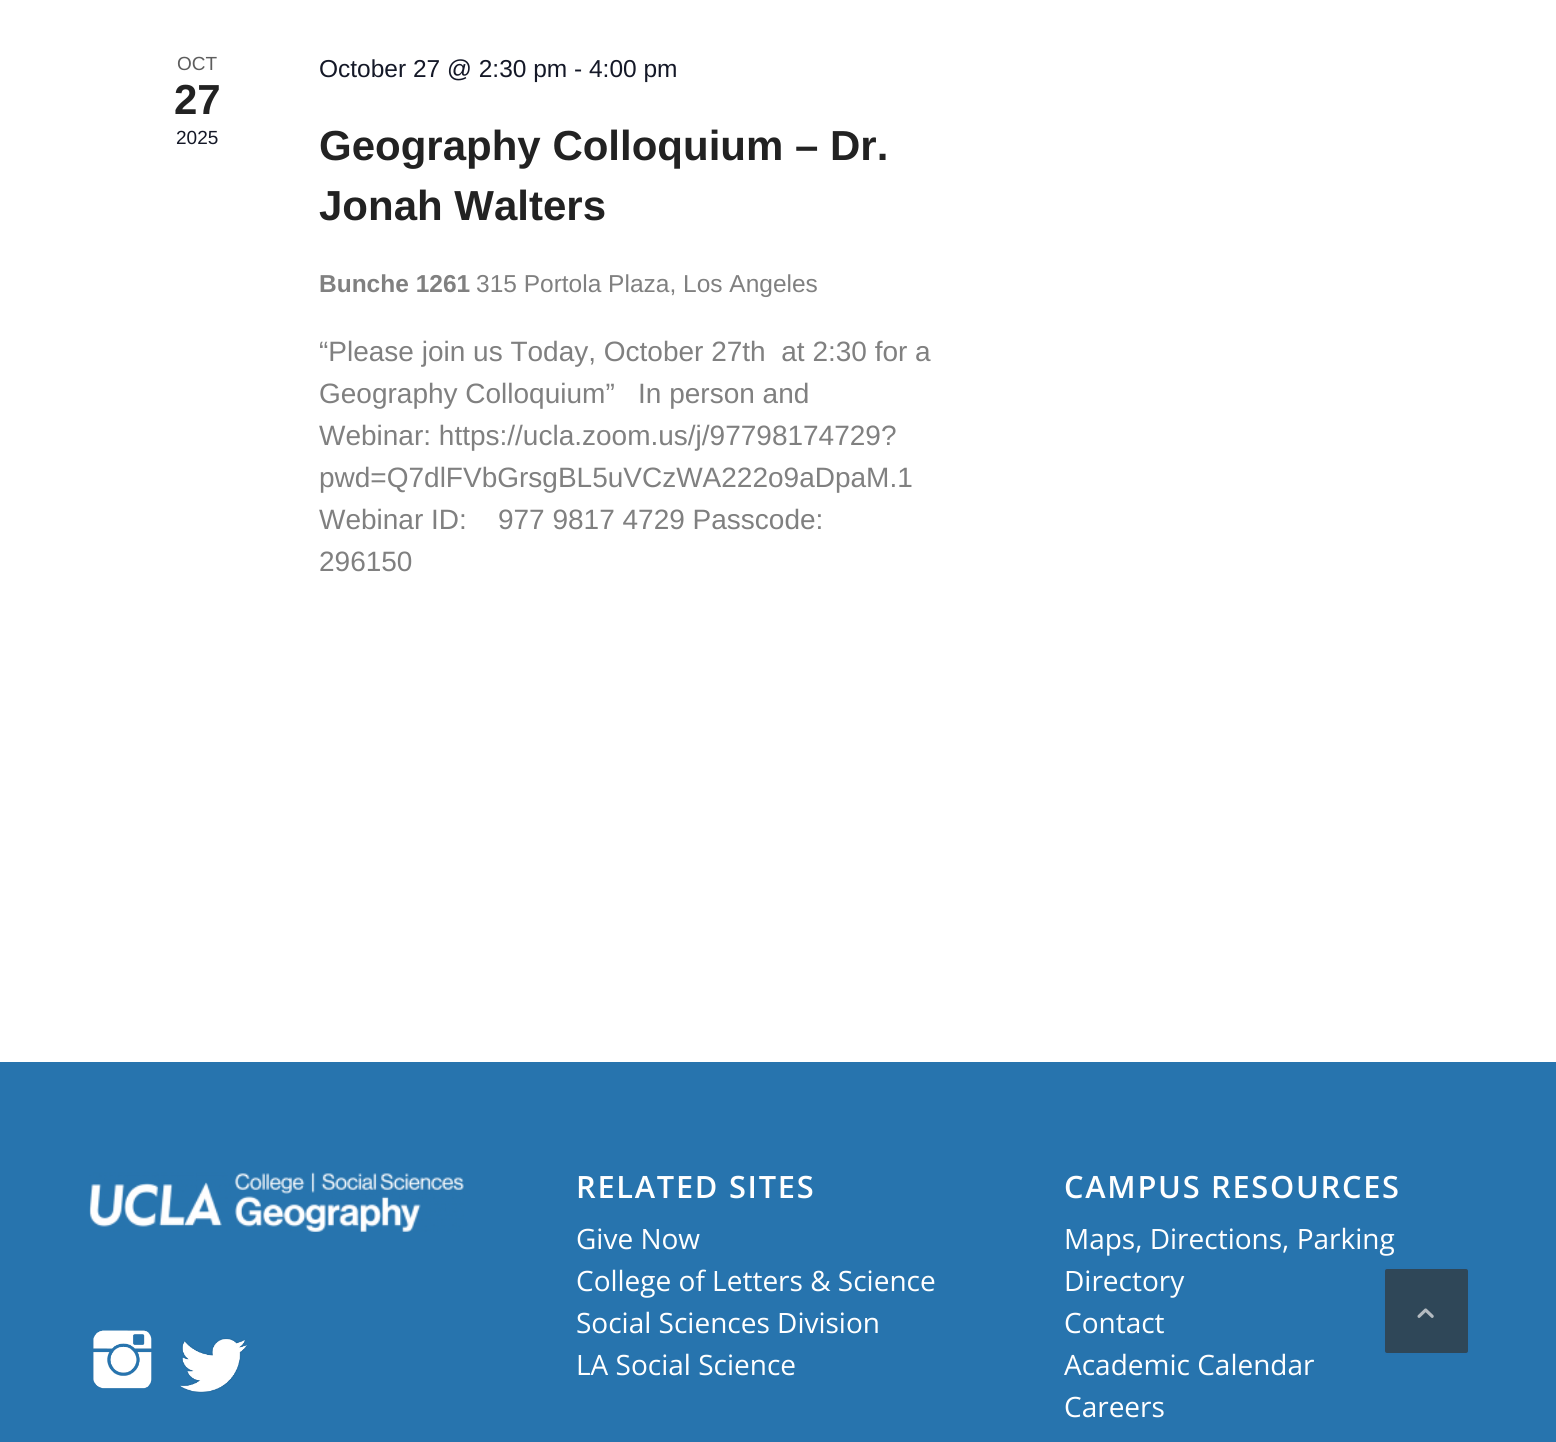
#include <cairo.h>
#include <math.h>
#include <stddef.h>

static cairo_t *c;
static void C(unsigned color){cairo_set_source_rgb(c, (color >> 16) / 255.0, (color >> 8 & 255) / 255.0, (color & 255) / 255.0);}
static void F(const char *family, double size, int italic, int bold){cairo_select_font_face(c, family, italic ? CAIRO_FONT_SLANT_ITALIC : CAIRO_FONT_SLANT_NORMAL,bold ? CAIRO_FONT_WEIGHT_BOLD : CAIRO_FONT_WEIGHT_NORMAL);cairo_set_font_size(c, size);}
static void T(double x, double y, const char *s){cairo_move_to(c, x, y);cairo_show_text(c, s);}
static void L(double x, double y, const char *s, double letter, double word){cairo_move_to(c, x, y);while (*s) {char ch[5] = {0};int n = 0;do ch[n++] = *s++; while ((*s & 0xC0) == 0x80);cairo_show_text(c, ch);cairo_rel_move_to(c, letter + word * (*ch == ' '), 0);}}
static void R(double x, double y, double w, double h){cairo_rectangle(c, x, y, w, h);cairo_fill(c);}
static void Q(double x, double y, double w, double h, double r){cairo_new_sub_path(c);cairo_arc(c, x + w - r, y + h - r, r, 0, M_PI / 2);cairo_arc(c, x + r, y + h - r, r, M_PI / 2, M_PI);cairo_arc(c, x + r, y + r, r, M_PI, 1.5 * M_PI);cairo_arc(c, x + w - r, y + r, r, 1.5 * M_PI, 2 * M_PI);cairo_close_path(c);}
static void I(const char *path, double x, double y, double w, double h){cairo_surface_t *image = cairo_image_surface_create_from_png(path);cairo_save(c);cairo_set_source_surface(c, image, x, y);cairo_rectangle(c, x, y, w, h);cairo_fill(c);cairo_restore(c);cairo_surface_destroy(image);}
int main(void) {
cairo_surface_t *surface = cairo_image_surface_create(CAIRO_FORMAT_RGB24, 1556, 1442);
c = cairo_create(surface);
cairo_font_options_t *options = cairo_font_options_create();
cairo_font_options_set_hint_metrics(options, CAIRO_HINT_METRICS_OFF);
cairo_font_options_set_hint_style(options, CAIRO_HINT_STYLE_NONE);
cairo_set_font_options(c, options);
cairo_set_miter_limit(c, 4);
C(0xffffff);
cairo_paint(c);
F("Liberation Sans",19,0,0);
C(0x5d5d5d);
T(177,70,"OCT");
F("Liberation Sans",42,0,1);
C(0x222222);
T(174,114,"27");
F("Liberation Sans",19,0,0);
C(0x141827);
T(176,144,"2025");
F("Liberation Sans",24.5,0,0);
T(319,77,"October 27 @ 2:30 pm - 4:00 pm");
F("Liberation Sans",42,0,1);
C(0x222222);
T(319,160,"Geography Colloquium – Dr.");
T(319,220,"Jonah Walters");
F("Liberation Sans",24.5,0,1);
C(0x808080);
T(319,292,"Bunche 1261");
F("Liberation Sans",24.5,0,0);
T(476,292,"315 Portola Plaza, Los Angeles");
F("Liberation Sans",28,0,0);
T(319,361,"“Please join us Today, October 27th  at 2:30 for a");
T(319,403,"Geography Colloquium”   In person and");
T(319,445,"Webinar: https://ucla.zoom.us/j/97798174729?");
T(319,487,"pwd=Q7dlFVbGrsgBL5uVCzWA222o9aDpaM.1");
T(319,529,"Webinar ID:    977 9817 4729 Passcode:");
T(319,571,"296150");
C(0x2774ae);
R(0,1062,1556,380);
I("1.png",89,1172,375,60);
I("2.png",93,1330,59,59);
I("3.png",180,1338,67,55);
F("Open Sans SemiBold",30.75,0,0);
C(0xffffff);
L(576,1198,"RELATED SITES",1.75,0);
F("Open Sans",28,0,0);
T(576,1249,"Give Now");
T(576,1291,"College of Letters & Science");
T(576,1333,"Social Sciences Division");
T(576,1375,"LA Social Science");
F("Open Sans SemiBold",30.75,0,0);
L(1064,1198,"CAMPUS RESOURCES",1.75,0);
F("Open Sans",28,0,0);
T(1064,1249,"Maps, Directions, Parking");
T(1064,1291,"Directory");
T(1064,1333,"Contact");
T(1064,1375,"Academic Calendar");
T(1064,1417,"Careers");
C(0x2f4758);
Q(1384,1268,85,86,3);
cairo_fill_preserve(c);
C(0x2773ae);
cairo_stroke(c);
I("4.png",1417,1308,17,10);
cairo_surface_write_to_png(surface, "o.png");
cairo_font_options_destroy(options);
cairo_destroy(c);
cairo_surface_destroy(surface);
return 0;
}
